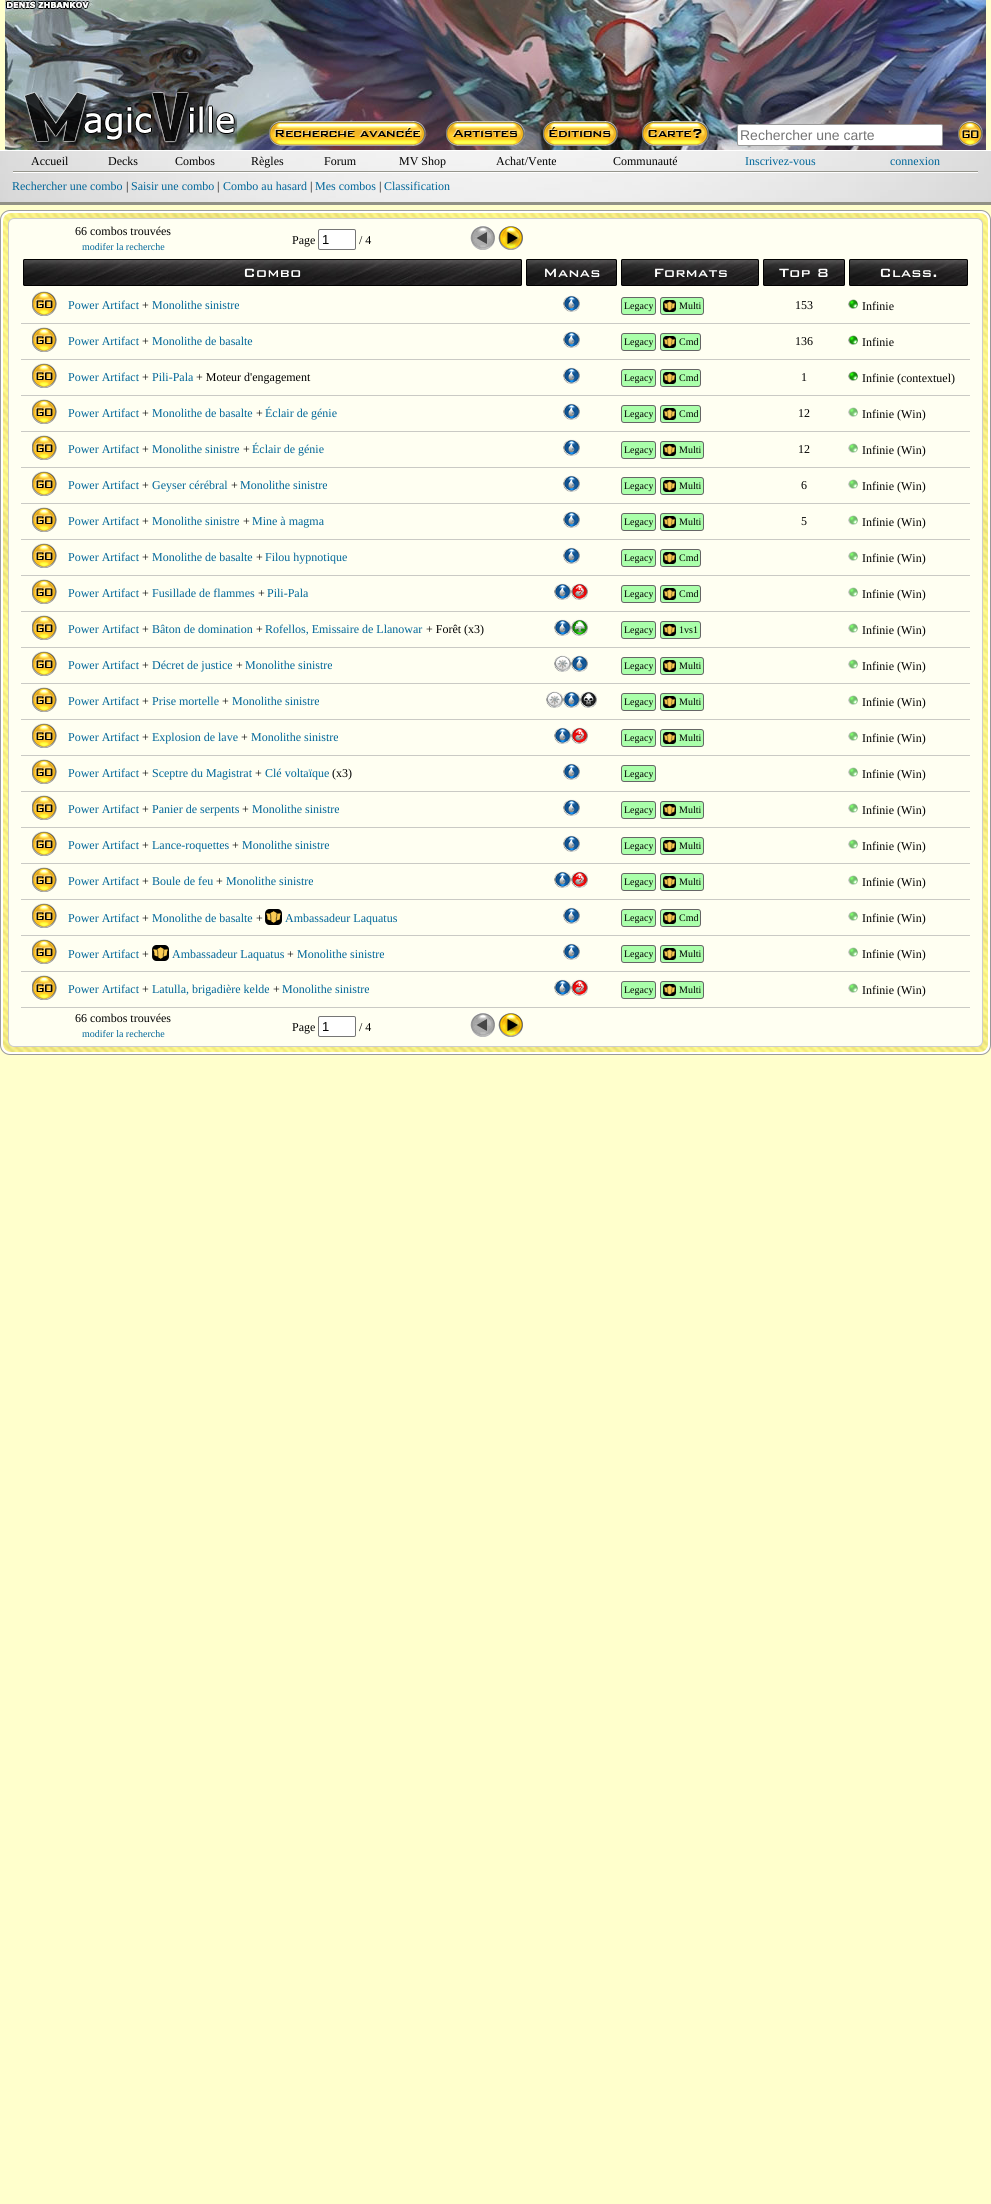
#include <cairo.h>
#include <math.h>
#include <stddef.h>

static cairo_t *c;
static void C(unsigned color){cairo_set_source_rgb(c, (color >> 16) / 255.0, (color >> 8 & 255) / 255.0, (color & 255) / 255.0);}
static void F(const char *family, double size, int italic, int bold){cairo_select_font_face(c, family, italic ? CAIRO_FONT_SLANT_ITALIC : CAIRO_FONT_SLANT_NORMAL,bold ? CAIRO_FONT_WEIGHT_BOLD : CAIRO_FONT_WEIGHT_NORMAL);cairo_set_font_size(c, size);}
static void T(double x, double y, const char *s){cairo_move_to(c, x, y);cairo_show_text(c, s);}
static void R(double x, double y, double w, double h){cairo_rectangle(c, x, y, w, h);cairo_fill(c);}
static void Q(double x, double y, double w, double h, double r){cairo_new_sub_path(c);cairo_arc(c, x + w - r, y + h - r, r, 0, M_PI / 2);cairo_arc(c, x + r, y + h - r, r, M_PI / 2, M_PI);cairo_arc(c, x + r, y + r, r, M_PI, 1.5 * M_PI);cairo_arc(c, x + w - r, y + r, r, 1.5 * M_PI, 2 * M_PI);cairo_close_path(c);}
static void I(const char *path, double x, double y, double w, double h){cairo_surface_t *image = cairo_image_surface_create_from_png(path);cairo_save(c);cairo_set_source_surface(c, image, x, y);cairo_rectangle(c, x, y, w, h);cairo_fill(c);cairo_restore(c);cairo_surface_destroy(image);}
int main(void) {
cairo_surface_t *surface = cairo_image_surface_create(CAIRO_FORMAT_RGB24, 991, 2204);
c = cairo_create(surface);
cairo_font_options_t *options = cairo_font_options_create();
cairo_font_options_set_hint_metrics(options, CAIRO_HINT_METRICS_OFF);
cairo_font_options_set_hint_style(options, CAIRO_HINT_STYLE_NONE);
cairo_set_font_options(c, options);
cairo_set_miter_limit(c, 4);
C(0xffffcc);
cairo_paint(c);
I("1.png",5,0,981,150);
I("2.png",24,92,213,54);
I("3.png",269,121,157,25);
I("4.png",446,121,79,25);
I("5.png",543,121,75,25);
I("6.png",642,121,67,25);
C(0xffffff);
Q(737.5,124.5,205,21,1.5);
cairo_fill_preserve(c);
C(0x999999);
cairo_set_line_width(c,1);
cairo_stroke(c);
F("Liberation Sans",14,0,0);
C(0x757575);
T(740,140,"Rechercher une carte");
I("7.png",958,121,25,25);
I("8.png",0,151,991,51);
C(0xffffff);
R(0,150,991,1);
C(0x919185);
R(0,202,991,3);
F("Liberation Serif",12,0,0);
C(0x000000);
T(31,165,"Accueil");
T(108,165,"Decks");
T(175,165,"Combos");
T(251,165,"Règles");
T(324,165,"Forum");
T(399,165,"MV Shop");
T(496,165,"Achat/Vente");
T(613,165,"Communauté");
C(0x006699);
T(745,165,"Inscrivez-vous");
T(890,165,"connexion");
I("9.png",13,171,965,2);
T(12,190,"Rechercher une combo");
C(0x000000);
T(126,190,"|");
C(0x006699);
T(131,190,"Saisir une combo");
C(0x000000);
T(217,190,"|");
C(0x006699);
T(223,190,"Combo au hasard");
C(0x000000);
T(310,190,"|");
C(0x006699);
T(315,190,"Mes combos");
C(0x000000);
T(379,190,"|");
C(0x006699);
T(384,190,"Classification");
C(0xffffff);
Q(.5,210.5,990,844,9.5);
cairo_fill_preserve(c);
C(0x999999);
cairo_stroke(c);
I("10.png",3,213,985,839);
C(0xfffff2);
Q(8.5,218.5,974,828,5.5);
cairo_fill_preserve(c);
C(0xcccccc);
cairo_stroke(c);
C(0x000000);
T(75,235,"66 combos trouvées");
F("Liberation Serif",10,0,0);
C(0x006699);
T(82,250,"modifer la recherche");
F("Liberation Serif",12,0,0);
C(0x000000);
T(292,244,"Page");
C(0xffffff);
Q(318.5,229.5,37,20,1.5);
cairo_fill_preserve(c);
C(0x767676);
cairo_stroke(c);
F("Liberation Sans",13,0,0);
C(0x000000);
T(322,244,"1");
F("Liberation Serif",12,0,0);
T(359,244,"/ 4");
I("11.png",470,225,25,25);
I("12.png",498,225,25,25);
I("13.png",23,259,499,27);
Q(23.5,259.5,498,26,1.5);
cairo_stroke(c);
F("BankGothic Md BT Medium",16,0,0);
C(0xffffff);
T(243,277,"Combo");
I("14.png",526,259,91,27);
Q(526.5,259.5,90,26,1.5);
C(0x000000);
cairo_stroke(c);
C(0xffffff);
T(543,277,"Manas");
I("15.png",621,259,138,27);
Q(621.5,259.5,137,26,1.5);
C(0x000000);
cairo_stroke(c);
C(0xffffff);
T(653,277,"Formats");
I("16.png",763,259,82,27);
Q(763.5,259.5,81,26,1.5);
C(0x000000);
cairo_stroke(c);
C(0xffffff);
T(779,277,"Top 8");
I("17.png",849,259,119,27);
Q(849.5,259.5,118,26,1.5);
C(0x000000);
cairo_stroke(c);
C(0xffffff);
T(879,277,"Class.");
I("18.png",32,291,25,25);
F("Liberation Serif",12,0,0);
C(0x006699);
T(68,309,"Power Artifact");
C(0x000000);
T(142,309,"+");
C(0x006699);
T(152,309,"Monolithe sinistre");
I("19.png",563,295,17,17);
C(0xaaffaa);
Q(621.5,297.5,34,17,2.5);
cairo_fill_preserve(c);
C(0x666666);
cairo_stroke(c);
F("Liberation Serif",10,0,0);
C(0x000000);
T(624,309,"Legacy");
C(0xaaffaa);
Q(660.5,297.5,43,17,2.5);
cairo_fill_preserve(c);
C(0x666666);
cairo_stroke(c);
I("20.png",663,300,13,12);
C(0x000000);
T(679,309,"Multi");
F("Liberation Serif",12,0,0);
T(795,309,"153");
I("21.png",848,299,10,10);
T(862,310,"Infinie");
C(0xcacac5);
R(21,323,949,1);
I("18.png",32,327,25,25);
C(0x006699);
T(68,345,"Power Artifact");
C(0x000000);
T(142,345,"+");
C(0x006699);
T(152,345,"Monolithe de basalte");
I("22.png",563,331,17,17);
C(0xaaffaa);
Q(621.5,333.5,34,17,2.5);
cairo_fill_preserve(c);
C(0x666666);
cairo_stroke(c);
F("Liberation Serif",10,0,0);
C(0x000000);
T(624,345,"Legacy");
C(0xaaffaa);
Q(660.5,333.5,40,17,2.5);
cairo_fill_preserve(c);
C(0x666666);
cairo_stroke(c);
I("20.png",663,336,13,12);
C(0x000000);
T(679,345,"Cmd");
F("Liberation Serif",12,0,0);
T(795,345,"136");
I("21.png",848,335,10,10);
T(862,346,"Infinie");
C(0xcacac5);
R(21,359,949,1);
I("18.png",32,363,25,25);
C(0x006699);
T(68,381,"Power Artifact");
C(0x000000);
T(142,381,"+");
C(0x006699);
T(152,381,"Pili-Pala");
C(0x000000);
T(196,381,"+ Moteur d'engagement");
I("22.png",563,367,17,17);
C(0xaaffaa);
Q(621.5,369.5,34,17,2.5);
cairo_fill_preserve(c);
C(0x666666);
cairo_stroke(c);
F("Liberation Serif",10,0,0);
C(0x000000);
T(624,381,"Legacy");
C(0xaaffaa);
Q(660.5,369.5,40,17,2.5);
cairo_fill_preserve(c);
C(0x666666);
cairo_stroke(c);
I("20.png",663,372,13,12);
C(0x000000);
T(679,381,"Cmd");
F("Liberation Serif",12,0,0);
T(801,381,"1");
I("21.png",848,371,10,10);
T(862,382,"Infinie (contextuel)");
C(0xcacac5);
R(21,395,949,1);
I("18.png",32,399,25,25);
C(0x006699);
T(68,417,"Power Artifact");
C(0x000000);
T(142,417,"+");
C(0x006699);
T(152,417,"Monolithe de basalte");
C(0x000000);
T(256,417,"+");
C(0x006699);
T(265,417,"Éclair de génie");
I("22.png",563,403,17,17);
C(0xaaffaa);
Q(621.5,405.5,34,17,2.5);
cairo_fill_preserve(c);
C(0x666666);
cairo_stroke(c);
F("Liberation Serif",10,0,0);
C(0x000000);
T(624,417,"Legacy");
C(0xaaffaa);
Q(660.5,405.5,40,17,2.5);
cairo_fill_preserve(c);
C(0x666666);
cairo_stroke(c);
I("20.png",663,408,13,12);
C(0x000000);
T(679,417,"Cmd");
F("Liberation Serif",12,0,0);
T(798,417,"12");
I("23.png",848,407,10,10);
T(862,418,"Infinie (Win)");
C(0xcacac5);
R(21,431,949,1);
I("18.png",32,435,25,25);
C(0x006699);
T(68,453,"Power Artifact");
C(0x000000);
T(142,453,"+");
C(0x006699);
T(152,453,"Monolithe sinistre");
C(0x000000);
T(243,453,"+");
C(0x006699);
T(252,453,"Éclair de génie");
I("22.png",563,439,17,17);
C(0xaaffaa);
Q(621.5,441.5,34,17,2.5);
cairo_fill_preserve(c);
C(0x666666);
cairo_stroke(c);
F("Liberation Serif",10,0,0);
C(0x000000);
T(624,453,"Legacy");
C(0xaaffaa);
Q(660.5,441.5,43,17,2.5);
cairo_fill_preserve(c);
C(0x666666);
cairo_stroke(c);
I("20.png",663,444,13,12);
C(0x000000);
T(679,453,"Multi");
F("Liberation Serif",12,0,0);
T(798,453,"12");
I("23.png",848,443,10,10);
T(862,454,"Infinie (Win)");
C(0xcacac5);
R(21,467,949,1);
I("18.png",32,471,25,25);
C(0x006699);
T(68,489,"Power Artifact");
C(0x000000);
T(142,489,"+");
C(0x006699);
T(152,489,"Geyser cérébral");
C(0x000000);
T(231,489,"+");
C(0x006699);
T(240,489,"Monolithe sinistre");
I("22.png",563,475,17,17);
C(0xaaffaa);
Q(621.5,477.5,34,17,2.5);
cairo_fill_preserve(c);
C(0x666666);
cairo_stroke(c);
F("Liberation Serif",10,0,0);
C(0x000000);
T(624,489,"Legacy");
C(0xaaffaa);
Q(660.5,477.5,43,17,2.5);
cairo_fill_preserve(c);
C(0x666666);
cairo_stroke(c);
I("20.png",663,480,13,12);
C(0x000000);
T(679,489,"Multi");
F("Liberation Serif",12,0,0);
T(801,489,"6");
I("23.png",848,479,10,10);
T(862,490,"Infinie (Win)");
C(0xcacac5);
R(21,503,949,1);
I("18.png",32,507,25,25);
C(0x006699);
T(68,525,"Power Artifact");
C(0x000000);
T(142,525,"+");
C(0x006699);
T(152,525,"Monolithe sinistre");
C(0x000000);
T(243,525,"+");
C(0x006699);
T(252,525,"Mine à magma");
I("22.png",563,511,17,17);
C(0xaaffaa);
Q(621.5,513.5,34,17,2.5);
cairo_fill_preserve(c);
C(0x666666);
cairo_stroke(c);
F("Liberation Serif",10,0,0);
C(0x000000);
T(624,525,"Legacy");
C(0xaaffaa);
Q(660.5,513.5,43,17,2.5);
cairo_fill_preserve(c);
C(0x666666);
cairo_stroke(c);
I("20.png",663,516,13,12);
C(0x000000);
T(679,525,"Multi");
F("Liberation Serif",12,0,0);
T(801,525,"5");
I("23.png",848,515,10,10);
T(862,526,"Infinie (Win)");
C(0xcacac5);
R(21,539,949,1);
I("18.png",32,543,25,25);
C(0x006699);
T(68,561,"Power Artifact");
C(0x000000);
T(142,561,"+");
C(0x006699);
T(152,561,"Monolithe de basalte");
C(0x000000);
T(256,561,"+");
C(0x006699);
T(265,561,"Filou hypnotique");
I("22.png",563,547,17,17);
C(0xaaffaa);
Q(621.5,549.5,34,17,2.5);
cairo_fill_preserve(c);
C(0x666666);
cairo_stroke(c);
F("Liberation Serif",10,0,0);
C(0x000000);
T(624,561,"Legacy");
C(0xaaffaa);
Q(660.5,549.5,40,17,2.5);
cairo_fill_preserve(c);
C(0x666666);
cairo_stroke(c);
I("20.png",663,552,13,12);
C(0x000000);
T(679,561,"Cmd");
I("23.png",848,551,10,10);
F("Liberation Serif",12,0,0);
T(862,562,"Infinie (Win)");
C(0xcacac5);
R(21,575,949,1);
I("18.png",32,579,25,25);
C(0x006699);
T(68,597,"Power Artifact");
C(0x000000);
T(142,597,"+");
C(0x006699);
T(152,597,"Fusillade de flammes");
C(0x000000);
T(258,597,"+");
C(0x006699);
T(267,597,"Pili-Pala");
I("24.png",554,583,17,17);
I("25.png",571,583,17,17);
C(0xaaffaa);
Q(621.5,585.5,34,17,2.5);
cairo_fill_preserve(c);
C(0x666666);
cairo_stroke(c);
F("Liberation Serif",10,0,0);
C(0x000000);
T(624,597,"Legacy");
C(0xaaffaa);
Q(660.5,585.5,40,17,2.5);
cairo_fill_preserve(c);
C(0x666666);
cairo_stroke(c);
I("20.png",663,588,13,12);
C(0x000000);
T(679,597,"Cmd");
I("23.png",848,587,10,10);
F("Liberation Serif",12,0,0);
T(862,598,"Infinie (Win)");
C(0xcacac5);
R(21,611,949,1);
I("18.png",32,615,25,25);
C(0x006699);
T(68,633,"Power Artifact");
C(0x000000);
T(142,633,"+");
C(0x006699);
T(152,633,"Bâton de domination");
C(0x000000);
T(256,633,"+");
C(0x006699);
T(265,633,"Rofellos, Emissaire de Llanowar");
C(0x000000);
T(426,633,"+ Forêt (x3)");
I("24.png",554,619,17,17);
I("26.png",571,619,17,17);
C(0xaaffaa);
Q(621.5,621.5,34,17,2.5);
cairo_fill_preserve(c);
C(0x666666);
cairo_stroke(c);
F("Liberation Serif",10,0,0);
C(0x000000);
T(624,633,"Legacy");
C(0xaaffaa);
Q(660.5,621.5,40,17,2.5);
cairo_fill_preserve(c);
C(0x666666);
cairo_stroke(c);
I("20.png",663,624,13,12);
C(0x000000);
T(679,633,"1vs1");
I("23.png",848,623,10,10);
F("Liberation Serif",12,0,0);
T(862,634,"Infinie (Win)");
C(0xcacac5);
R(21,647,949,1);
I("18.png",32,651,25,25);
C(0x006699);
T(68,669,"Power Artifact");
C(0x000000);
T(142,669,"+");
C(0x006699);
T(152,669,"Décret de justice");
C(0x000000);
T(236,669,"+");
C(0x006699);
T(245,669,"Monolithe sinistre");
I("27.png",554,655,17,17);
I("24.png",571,655,17,17);
C(0xaaffaa);
Q(621.5,657.5,34,17,2.5);
cairo_fill_preserve(c);
C(0x666666);
cairo_stroke(c);
F("Liberation Serif",10,0,0);
C(0x000000);
T(624,669,"Legacy");
C(0xaaffaa);
Q(660.5,657.5,43,17,2.5);
cairo_fill_preserve(c);
C(0x666666);
cairo_stroke(c);
I("20.png",663,660,13,12);
C(0x000000);
T(679,669,"Multi");
I("23.png",848,659,10,10);
F("Liberation Serif",12,0,0);
T(862,670,"Infinie (Win)");
C(0xcacac5);
R(21,683,949,1);
I("18.png",32,687,25,25);
C(0x006699);
T(68,705,"Power Artifact");
C(0x000000);
T(142,705,"+");
C(0x006699);
T(152,705,"Prise mortelle");
C(0x000000);
T(222,705,"+");
C(0x006699);
T(232,705,"Monolithe sinistre");
I("27.png",546,691,17,17);
I("22.png",563,691,17,17);
I("28.png",580,691,17,17);
C(0xaaffaa);
Q(621.5,693.5,34,17,2.5);
cairo_fill_preserve(c);
C(0x666666);
cairo_stroke(c);
F("Liberation Serif",10,0,0);
C(0x000000);
T(624,705,"Legacy");
C(0xaaffaa);
Q(660.5,693.5,43,17,2.5);
cairo_fill_preserve(c);
C(0x666666);
cairo_stroke(c);
I("20.png",663,696,13,12);
C(0x000000);
T(679,705,"Multi");
I("23.png",848,695,10,10);
F("Liberation Serif",12,0,0);
T(862,706,"Infinie (Win)");
C(0xcacac5);
R(21,719,949,1);
I("18.png",32,723,25,25);
C(0x006699);
T(68,741,"Power Artifact");
C(0x000000);
T(142,741,"+");
C(0x006699);
T(152,741,"Explosion de lave");
C(0x000000);
T(241,741,"+");
C(0x006699);
T(251,741,"Monolithe sinistre");
I("24.png",554,727,17,17);
I("25.png",571,727,17,17);
C(0xaaffaa);
Q(621.5,729.5,34,17,2.5);
cairo_fill_preserve(c);
C(0x666666);
cairo_stroke(c);
F("Liberation Serif",10,0,0);
C(0x000000);
T(624,741,"Legacy");
C(0xaaffaa);
Q(660.5,729.5,43,17,2.5);
cairo_fill_preserve(c);
C(0x666666);
cairo_stroke(c);
I("20.png",663,732,13,12);
C(0x000000);
T(679,741,"Multi");
I("23.png",848,731,10,10);
F("Liberation Serif",12,0,0);
T(862,742,"Infinie (Win)");
C(0xcacac5);
R(21,755,949,1);
I("18.png",32,759,25,25);
C(0x006699);
T(68,777,"Power Artifact");
C(0x000000);
T(142,777,"+");
C(0x006699);
T(152,777,"Sceptre du Magistrat");
C(0x000000);
T(255,777,"+");
C(0x006699);
T(265,777,"Clé voltaïque");
C(0x000000);
T(332,777,"(x3)");
I("22.png",563,763,17,17);
C(0xaaffaa);
Q(621.5,765.5,34,16,2.5);
cairo_fill_preserve(c);
C(0x666666);
cairo_stroke(c);
F("Liberation Serif",10,0,0);
C(0x000000);
T(624,777,"Legacy");
I("23.png",848,767,10,10);
F("Liberation Serif",12,0,0);
T(862,778,"Infinie (Win)");
C(0xcacac5);
R(21,791,949,1);
I("18.png",32,795,25,25);
C(0x006699);
T(68,813,"Power Artifact");
C(0x000000);
T(142,813,"+");
C(0x006699);
T(152,813,"Panier de serpents");
C(0x000000);
T(242,813,"+");
C(0x006699);
T(252,813,"Monolithe sinistre");
I("22.png",563,799,17,17);
C(0xaaffaa);
Q(621.5,801.5,34,17,2.5);
cairo_fill_preserve(c);
C(0x666666);
cairo_stroke(c);
F("Liberation Serif",10,0,0);
C(0x000000);
T(624,813,"Legacy");
C(0xaaffaa);
Q(660.5,801.5,43,17,2.5);
cairo_fill_preserve(c);
C(0x666666);
cairo_stroke(c);
I("20.png",663,804,13,12);
C(0x000000);
T(679,813,"Multi");
I("23.png",848,803,10,10);
F("Liberation Serif",12,0,0);
T(862,814,"Infinie (Win)");
C(0xcacac5);
R(21,827,949,1);
I("18.png",32,831,25,25);
C(0x006699);
T(68,849,"Power Artifact");
C(0x000000);
T(142,849,"+");
C(0x006699);
T(152,849,"Lance-roquettes");
C(0x000000);
T(232,849,"+");
C(0x006699);
T(242,849,"Monolithe sinistre");
I("22.png",563,835,17,17);
C(0xaaffaa);
Q(621.5,837.5,34,17,2.5);
cairo_fill_preserve(c);
C(0x666666);
cairo_stroke(c);
F("Liberation Serif",10,0,0);
C(0x000000);
T(624,849,"Legacy");
C(0xaaffaa);
Q(660.5,837.5,43,17,2.5);
cairo_fill_preserve(c);
C(0x666666);
cairo_stroke(c);
I("20.png",663,840,13,12);
C(0x000000);
T(679,849,"Multi");
I("23.png",848,839,10,10);
F("Liberation Serif",12,0,0);
T(862,850,"Infinie (Win)");
C(0xcacac5);
R(21,863,949,1);
I("18.png",32,867,25,25);
C(0x006699);
T(68,885,"Power Artifact");
C(0x000000);
T(142,885,"+");
C(0x006699);
T(152,885,"Boule de feu");
C(0x000000);
T(216,885,"+");
C(0x006699);
T(226,885,"Monolithe sinistre");
I("24.png",554,871,17,17);
I("25.png",571,871,17,17);
C(0xaaffaa);
Q(621.5,873.5,34,17,2.5);
cairo_fill_preserve(c);
C(0x666666);
cairo_stroke(c);
F("Liberation Serif",10,0,0);
C(0x000000);
T(624,885,"Legacy");
C(0xaaffaa);
Q(660.5,873.5,43,17,2.5);
cairo_fill_preserve(c);
C(0x666666);
cairo_stroke(c);
I("20.png",663,876,13,12);
C(0x000000);
T(679,885,"Multi");
I("23.png",848,875,10,10);
F("Liberation Serif",12,0,0);
T(862,886,"Infinie (Win)");
C(0xcacac5);
R(21,899,949,1);
I("18.png",32,903,25,25);
C(0x006699);
T(68,922,"Power Artifact");
C(0x000000);
T(142,922,"+");
C(0x006699);
T(152,922,"Monolithe de basalte");
C(0x000000);
T(256,922,"+");
I("29.png",265,909,17,16);
C(0x006699);
T(285,922,"Ambassadeur Laquatus");
I("22.png",563,907,17,17);
C(0xaaffaa);
Q(621.5,909.5,34,17,2.5);
cairo_fill_preserve(c);
C(0x666666);
cairo_stroke(c);
F("Liberation Serif",10,0,0);
C(0x000000);
T(624,921,"Legacy");
C(0xaaffaa);
Q(660.5,909.5,40,17,2.5);
cairo_fill_preserve(c);
C(0x666666);
cairo_stroke(c);
I("20.png",663,912,13,12);
C(0x000000);
T(679,921,"Cmd");
I("23.png",848,911,10,10);
F("Liberation Serif",12,0,0);
T(862,922,"Infinie (Win)");
C(0xcacac5);
R(21,935,949,1);
I("18.png",32,939,25,25);
C(0x006699);
T(68,958,"Power Artifact");
C(0x000000);
T(142,958,"+");
I("29.png",152,945,17,16);
C(0x006699);
T(172,958,"Ambassadeur Laquatus");
C(0x000000);
T(287,958,"+");
C(0x006699);
T(297,958,"Monolithe sinistre");
I("22.png",563,943,17,17);
C(0xaaffaa);
Q(621.5,945.5,34,17,2.5);
cairo_fill_preserve(c);
C(0x666666);
cairo_stroke(c);
F("Liberation Serif",10,0,0);
C(0x000000);
T(624,957,"Legacy");
C(0xaaffaa);
Q(660.5,945.5,43,17,2.5);
cairo_fill_preserve(c);
C(0x666666);
cairo_stroke(c);
I("20.png",663,948,13,12);
C(0x000000);
T(679,957,"Multi");
I("23.png",848,947,10,10);
F("Liberation Serif",12,0,0);
T(862,958,"Infinie (Win)");
C(0xcacac5);
R(21,971,949,1);
I("18.png",32,975,25,25);
C(0x006699);
T(68,993,"Power Artifact");
C(0x000000);
T(142,993,"+");
C(0x006699);
T(152,993,"Latulla, brigadière kelde");
C(0x000000);
T(273,993,"+");
C(0x006699);
T(282,993,"Monolithe sinistre");
I("24.png",554,979,17,17);
I("25.png",571,979,17,17);
C(0xaaffaa);
Q(621.5,981.5,34,17,2.5);
cairo_fill_preserve(c);
C(0x666666);
cairo_stroke(c);
F("Liberation Serif",10,0,0);
C(0x000000);
T(624,993,"Legacy");
C(0xaaffaa);
Q(660.5,981.5,43,17,2.5);
cairo_fill_preserve(c);
C(0x666666);
cairo_stroke(c);
I("20.png",663,984,13,12);
C(0x000000);
T(679,993,"Multi");
I("23.png",848,983,10,10);
F("Liberation Serif",12,0,0);
T(862,994,"Infinie (Win)");
C(0xcacac5);
R(21,1007,949,1);
C(0x000000);
T(75,1022,"66 combos trouvées");
F("Liberation Serif",10,0,0);
C(0x006699);
T(82,1037,"modifer la recherche");
F("Liberation Serif",12,0,0);
C(0x000000);
T(292,1031,"Page");
C(0xffffff);
Q(318.5,1016.5,37,20,1.5);
cairo_fill_preserve(c);
C(0x767676);
cairo_stroke(c);
F("Liberation Sans",13,0,0);
C(0x000000);
T(322,1031,"1");
F("Liberation Serif",12,0,0);
T(359,1031,"/ 4");
I("11.png",470,1012,25,25);
I("12.png",498,1012,25,25);
cairo_surface_write_to_png(surface, "o.png");
cairo_font_options_destroy(options);
cairo_destroy(c);
cairo_surface_destroy(surface);
return 0;
}
